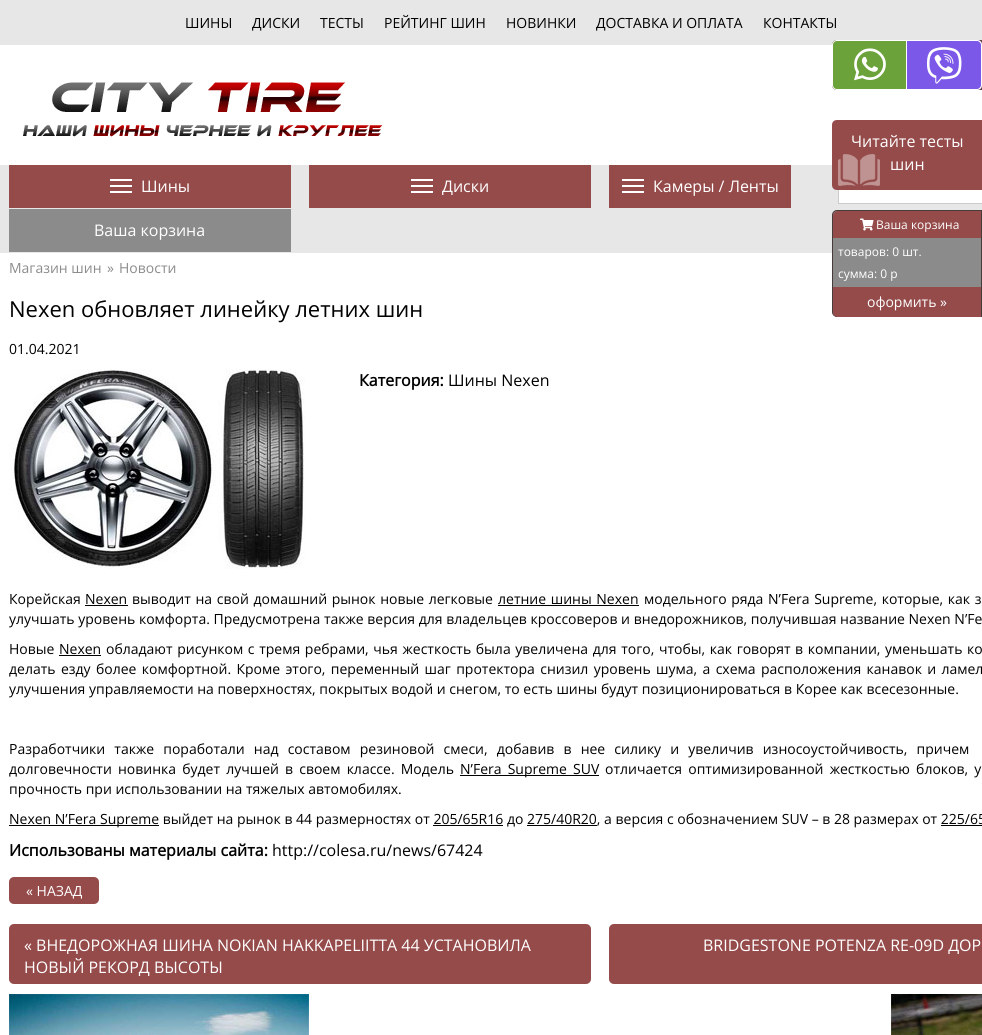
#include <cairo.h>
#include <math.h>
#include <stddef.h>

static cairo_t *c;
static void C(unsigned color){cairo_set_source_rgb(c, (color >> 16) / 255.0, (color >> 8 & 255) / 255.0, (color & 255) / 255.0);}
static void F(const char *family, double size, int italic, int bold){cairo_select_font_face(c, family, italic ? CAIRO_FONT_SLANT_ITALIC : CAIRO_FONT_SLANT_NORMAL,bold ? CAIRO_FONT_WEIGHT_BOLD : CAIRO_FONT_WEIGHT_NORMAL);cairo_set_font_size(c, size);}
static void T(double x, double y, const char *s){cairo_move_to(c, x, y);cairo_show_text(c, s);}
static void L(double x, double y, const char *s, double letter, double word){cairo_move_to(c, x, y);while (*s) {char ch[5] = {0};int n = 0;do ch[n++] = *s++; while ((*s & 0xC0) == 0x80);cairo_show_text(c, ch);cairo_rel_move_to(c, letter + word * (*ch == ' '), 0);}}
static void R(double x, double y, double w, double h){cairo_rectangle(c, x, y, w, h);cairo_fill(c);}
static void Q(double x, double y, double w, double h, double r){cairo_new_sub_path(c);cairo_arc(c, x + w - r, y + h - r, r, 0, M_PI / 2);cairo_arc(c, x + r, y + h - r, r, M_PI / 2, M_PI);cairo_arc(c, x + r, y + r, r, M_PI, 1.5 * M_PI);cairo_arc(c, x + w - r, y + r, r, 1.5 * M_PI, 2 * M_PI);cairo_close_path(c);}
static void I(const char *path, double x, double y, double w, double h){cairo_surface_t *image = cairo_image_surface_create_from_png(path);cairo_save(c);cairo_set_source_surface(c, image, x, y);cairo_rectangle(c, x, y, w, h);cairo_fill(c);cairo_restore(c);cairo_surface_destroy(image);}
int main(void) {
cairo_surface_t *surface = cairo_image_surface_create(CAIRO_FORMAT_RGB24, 982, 1035);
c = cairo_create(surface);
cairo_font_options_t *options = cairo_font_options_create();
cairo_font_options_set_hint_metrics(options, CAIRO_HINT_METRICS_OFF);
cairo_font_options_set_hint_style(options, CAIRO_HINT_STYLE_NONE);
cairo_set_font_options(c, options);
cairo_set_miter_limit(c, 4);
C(0xffffff);
cairo_paint(c);
C(0xe7e7e7);
R(0,0,982,45);
F("Open Sans",14,0,0);
C(0x000000);
T(185,28,"ШИНЫ");
T(252,28,"ДИСКИ");
T(320,28,"ТЕСТЫ");
T(384,28,"РЕЙТИНГ ШИН");
T(506,28,"НОВИНКИ");
T(596,28,"ДОСТАВКА И ОПЛАТА");
T(763,28,"КОНТАКТЫ");
C(0x633f42);
cairo_new_path(c);
cairo_move_to(c,837,40);
cairo_line_to(c,982,40);
cairo_line_to(c,982,90);
cairo_line_to(c,837,90);
cairo_curve_to(c,834,90,832,88,832,85);
cairo_line_to(c,832,45);
cairo_curve_to(c,832,42,834,40,837,40);
cairo_close_path(c);
cairo_fill(c);
C(0x6ba239);
cairo_new_path(c);
cairo_move_to(c,837,40.5);
cairo_line_to(c,906.5,40.5);
cairo_line_to(c,906.5,89.5);
cairo_line_to(c,837,89.5);
cairo_curve_to(c,834.5,89.5,832.5,87.5,832.5,85);
cairo_line_to(c,832.5,45);
cairo_curve_to(c,832.5,42.5,834.5,40.5,837,40.5);
cairo_close_path(c);
cairo_fill_preserve(c);
C(0xffffff);
cairo_set_line_width(c,1);
cairo_stroke(c);
I("1.png",854,48,32,33);
C(0x7b58e8);
cairo_new_path(c);
cairo_move_to(c,907,40);
cairo_line_to(c,977,40);
cairo_curve_to(c,980,40,982,42,982,45);
cairo_line_to(c,982,85);
cairo_curve_to(c,982,88,980,90,977,90);
cairo_line_to(c,907,90);
cairo_close_path(c);
cairo_fill(c);
C(0xffffff);
cairo_set_fill_rule(c,CAIRO_FILL_RULE_EVEN_ODD);
cairo_new_path(c);
cairo_move_to(c,907,40);
cairo_line_to(c,977,40);
cairo_curve_to(c,980,40,982,42,982,45);
cairo_line_to(c,982,85);
cairo_curve_to(c,982,88,980,90,977,90);
cairo_line_to(c,907,90);
cairo_close_path(c);
cairo_move_to(c,907,41);
cairo_line_to(c,977,41);
cairo_curve_to(c,979,41,981,43,981,45);
cairo_line_to(c,981,85);
cairo_curve_to(c,981,87,979,89,977,89);
cairo_line_to(c,907,89);
cairo_close_path(c);
cairo_fill(c);
I("2.png",926,47,36,37);
I("3.png",23,82,360,55);
C(0xe7e7e7);
R(0,165,982,88);
C(0xffffff);
R(839,190,143,13);
cairo_rectangle(c,838.5,170.5,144,33);
C(0xcccccc);
cairo_stroke(c);
C(0x964b4b);
cairo_new_path(c);
cairo_move_to(c,837,120);
cairo_line_to(c,982,120);
cairo_line_to(c,982,190);
cairo_line_to(c,837,190);
cairo_curve_to(c,834,190,832,188,832,185);
cairo_line_to(c,832,125);
cairo_curve_to(c,832,122,834,120,837,120);
cairo_close_path(c);
cairo_fill(c);
I("4.png",838,154,42,32);
F("Open Sans",16,0,0);
C(0xffffff);
T(851,147,"Читайте тесты");
T(890,170,"шин");
C(0x964b4b);
R(9,165,282,43);
C(0xffffff);
R(110,185,22,2);
R(110,179,22,2);
R(110,191,22,2);
T(141,192,"Шины");
C(0x964b4b);
R(309,165,282,43);
C(0xffffff);
R(411,185,22,2);
R(411,179,22,2);
R(411,191,22,2);
T(442,192,"Диски");
C(0x964b4b);
R(609,165,182,43);
C(0xffffff);
R(622,185,22,2);
R(622,179,22,2);
R(622,191,22,2);
T(653,192,"Камеры / Ленты");
C(0x8b8b8b);
R(9,209,282,43);
C(0xffffff);
T(94,236,"Ваша корзина");
C(0x8b8b8b);
cairo_new_path(c);
cairo_move_to(c,837,210.5);
cairo_line_to(c,981.5,210.5);
cairo_line_to(c,981.5,316.5);
cairo_line_to(c,837,316.5);
cairo_curve_to(c,834.5,316.5,832.5,314.5,832.5,312);
cairo_line_to(c,832.5,215);
cairo_curve_to(c,832.5,212.5,834.5,210.5,837,210.5);
cairo_close_path(c);
cairo_fill_preserve(c);
C(0x473b3c);
cairo_stroke(c);
C(0x964b4b);
cairo_new_path(c);
cairo_move_to(c,838,211);
cairo_line_to(c,981,211);
cairo_line_to(c,981,238);
cairo_line_to(c,833,238);
cairo_line_to(c,833,216);
cairo_curve_to(c,833,213,835,211,838,211);
cairo_close_path(c);
cairo_fill(c);
I("5.png",860,218,14,13);
F("Open Sans",12,0,0);
C(0xffffff);
T(876,229,"Ваша корзина");
T(838,256,"товаров: 0 шт.");
T(838,278,"сумма: 0 р");
C(0x964b4b);
cairo_new_path(c);
cairo_move_to(c,833,287);
cairo_line_to(c,981,287);
cairo_line_to(c,981,317);
cairo_line_to(c,838,317);
cairo_curve_to(c,835,317,833,315,833,312);
cairo_close_path(c);
cairo_fill(c);
F("Open Sans",14,0,0);
C(0xffffff);
T(867,307,"оформить »");
C(0x8b8b8b);
T(9,273,"Магазин шин");
T(107,273,"»");
T(119,273,"Новости");
F("Open Sans",22,0,0);
C(0x000000);
T(9,317,"Nexen обновляет линейку летних шин");
F("Open Sans",14,0,0);
T(9,354,"01.04.2021");
I("6.png",9,369,296,200);
F("Open Sans",16,0,1);
T(359,386,"Категория:");
F("Open Sans",16,0,0);
T(448,386,"Шины Nexen");
F("Open Sans",14,0,0);
T(9,604,"Корейская");
T(85,604,"Nexen");
R(85,605,43,1);
L(132,604,"выводит на свой домашний рынок новые легковые",0,1);
L(498,604,"летние шины Nexen",0,1);
R(498,605,141,1);
L(644,604,"модельного ряда N’Fera Supreme, которые, как з",0,1);
T(9,624,"улучшать уровень комфорта. Предусмотрена также версия для владельцев кроссоверов и внедорожников, получившая название Nexen N’Fe");
T(9,654,"Новые");
T(59,654,"Nexen");
R(59,655,42,1);
L(106,654,"обладают рисунком с тремя ребрами, чья жесткость была увеличена для того, чтобы, как говорят в компании, уменьшать ко",0,1);
L(9,674,"делать езду более комфортной. Кроме этого, переменный шаг протектора снизил уровень шума, а схема расположения канавок и ламел",0,1.7);
T(9,694,"улучшения управляемости на поверхностях, покрытых водой и снегом, то есть шины будут позиционироваться в Корее как всесезонные.");
L(9,754,"Разработчики также поработали над составом резиновой смеси, добавив в нее силику и увеличив износоустойчивость, причем",0,5.5);
L(9,774,"долговечности новинка будет лучшей в своем классе. Модель",0,2.5);
R(460,775,139,1);
L(460,774,"N’Fera Supreme SUV",0,2.5);
L(605,774,"отличается оптимизированной жесткостью блоков, у",0,2.5);
T(9,794,"прочность при использовании на тяжелых автомобилях.");
R(9,825,150,1);
T(9,824,"Nexen N’Fera Supreme выйдет на рынок в 44 размерностях от 205/65R16 до 275/40R20, а версия с обозначением SUV – в 28 размерах от 225/65");
R(433,825,70,1);
R(527,825,70,1);
R(941,825,41,1);
F("Open Sans",16,0,1);
T(9,856,"Использованы материалы сайта:");
F("Open Sans",16,0,0);
T(272,856,"http://colesa.ru/news/67424");
C(0x964b4b);
Q(9,877,90,27,5);
cairo_fill(c);
F("Open Sans",14,0,0);
C(0xffffff);
T(26,896,"« НАЗАД");
C(0x964b4b);
Q(9,924,582,60,5);
cairo_fill(c);
F("Open Sans",16,0,0);
C(0xffffff);
T(24,951,"« ВНЕДОРОЖНАЯ ШИНА NOKIAN HAKKAPELIITTA 44 УСТАНОВИЛА");
T(24,973,"НОВЫЙ РЕКОРД ВЫСОТЫ");
I("7.png",9,994,300,41);
C(0x964b4b);
Q(609,924,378,60,5);
cairo_fill(c);
C(0xffffff);
T(703,951,"BRIDGESTONE POTENZA RE-09D ДОР");
I("8.png",891,994,91,41);
cairo_surface_write_to_png(surface, "o.png");
cairo_font_options_destroy(options);
cairo_destroy(c);
cairo_surface_destroy(surface);
return 0;
}
